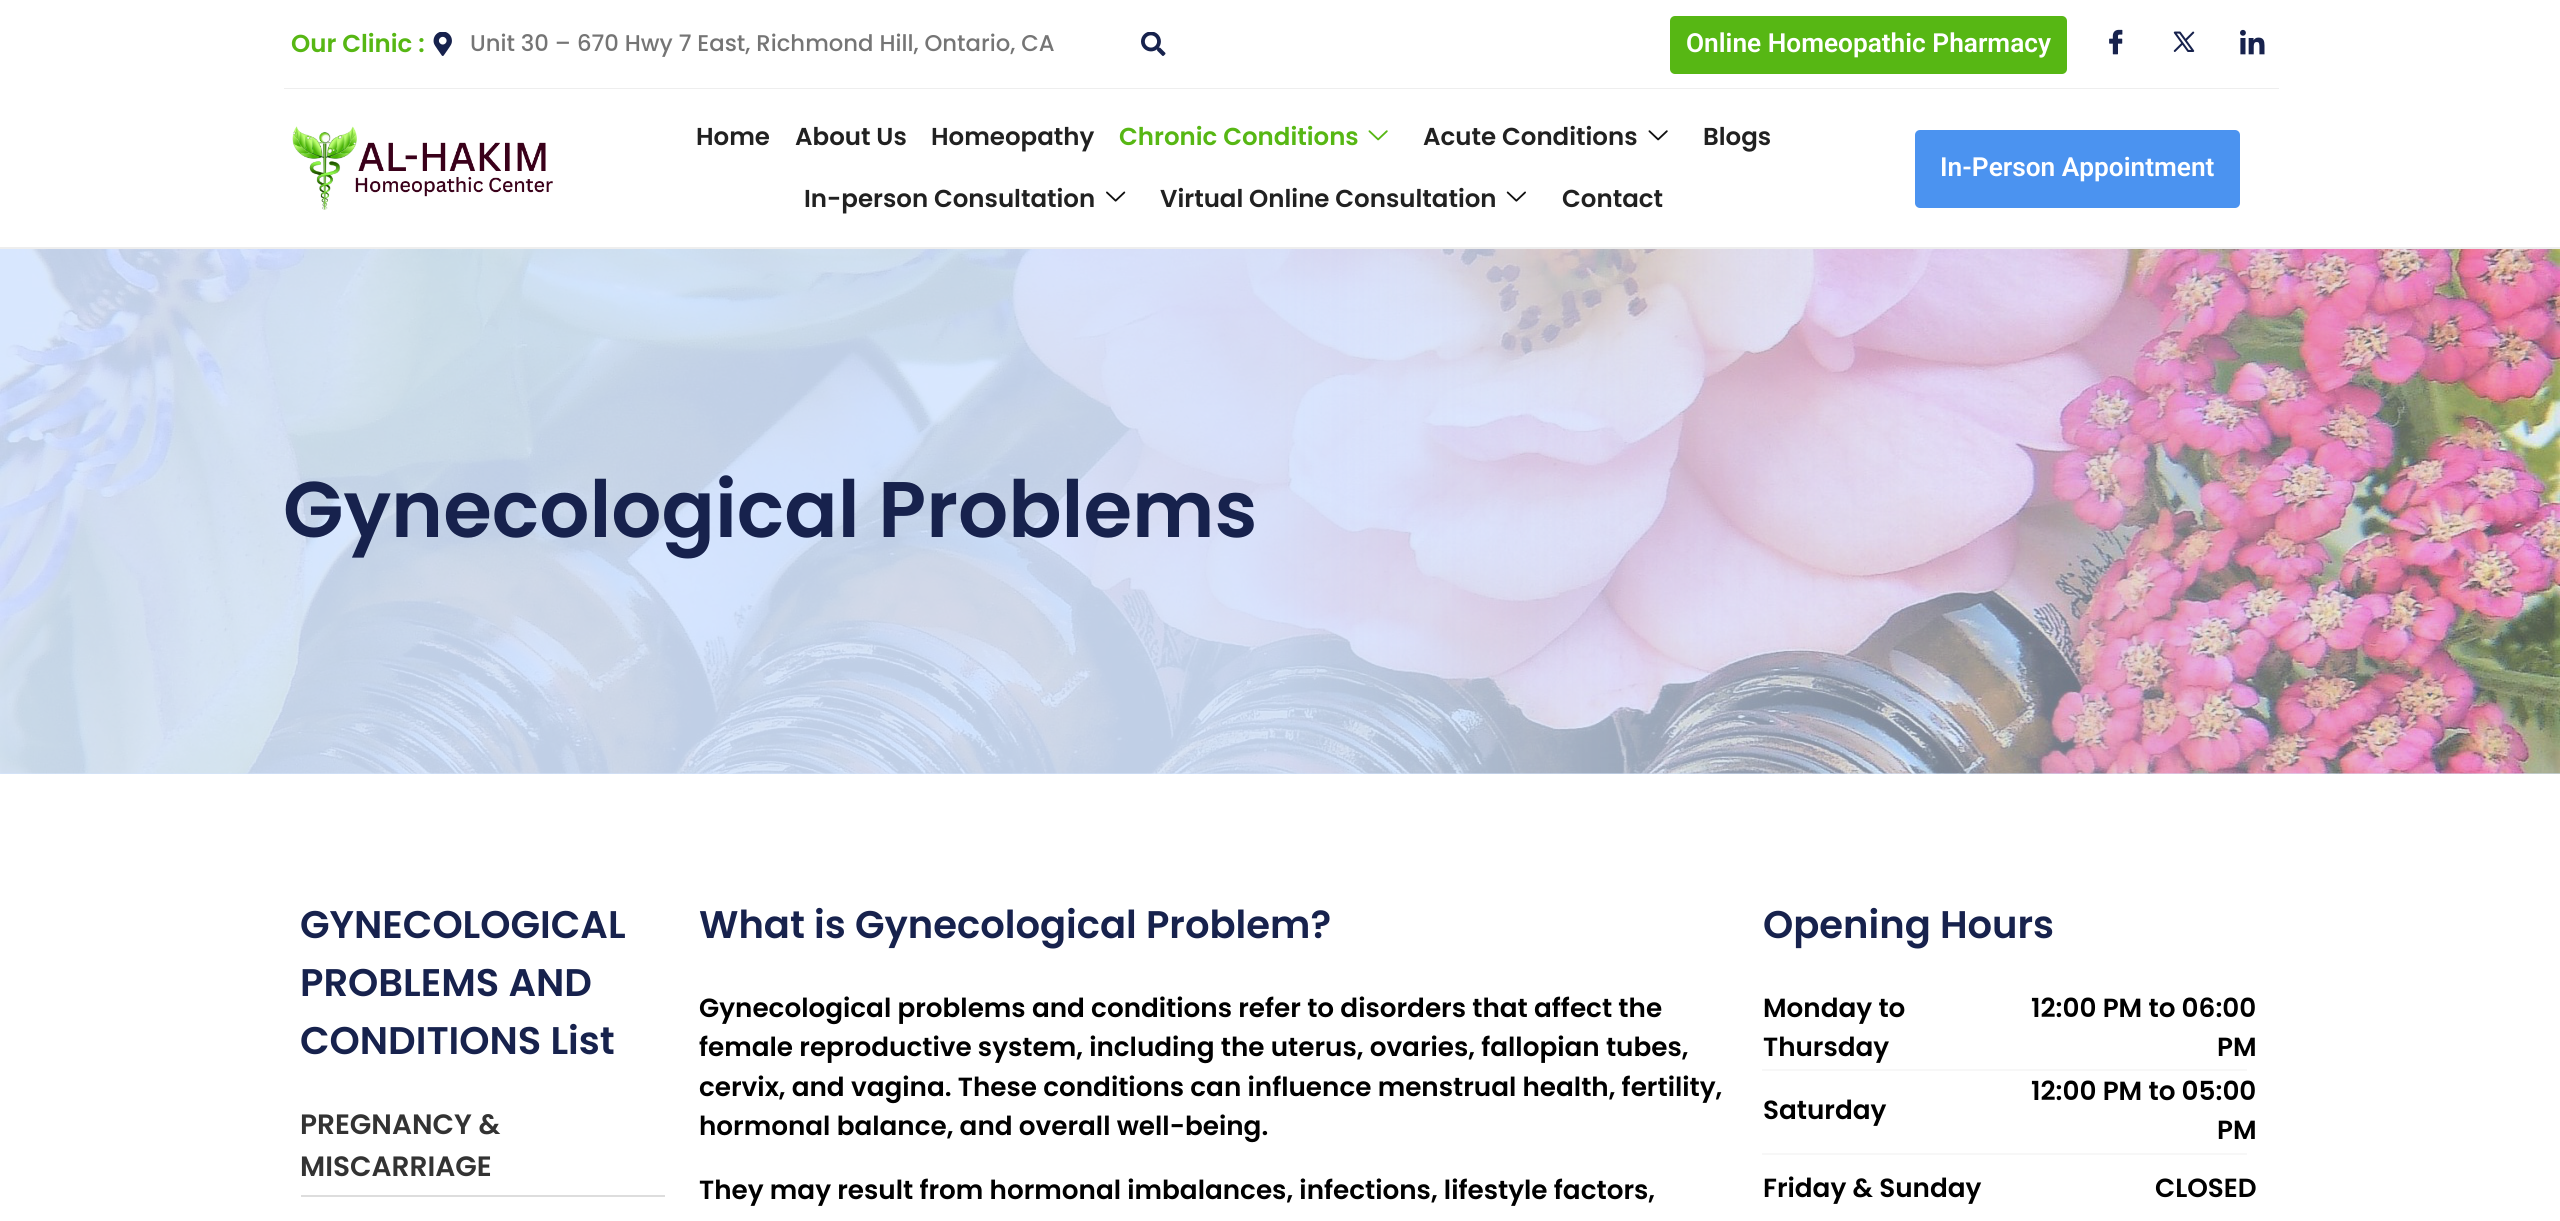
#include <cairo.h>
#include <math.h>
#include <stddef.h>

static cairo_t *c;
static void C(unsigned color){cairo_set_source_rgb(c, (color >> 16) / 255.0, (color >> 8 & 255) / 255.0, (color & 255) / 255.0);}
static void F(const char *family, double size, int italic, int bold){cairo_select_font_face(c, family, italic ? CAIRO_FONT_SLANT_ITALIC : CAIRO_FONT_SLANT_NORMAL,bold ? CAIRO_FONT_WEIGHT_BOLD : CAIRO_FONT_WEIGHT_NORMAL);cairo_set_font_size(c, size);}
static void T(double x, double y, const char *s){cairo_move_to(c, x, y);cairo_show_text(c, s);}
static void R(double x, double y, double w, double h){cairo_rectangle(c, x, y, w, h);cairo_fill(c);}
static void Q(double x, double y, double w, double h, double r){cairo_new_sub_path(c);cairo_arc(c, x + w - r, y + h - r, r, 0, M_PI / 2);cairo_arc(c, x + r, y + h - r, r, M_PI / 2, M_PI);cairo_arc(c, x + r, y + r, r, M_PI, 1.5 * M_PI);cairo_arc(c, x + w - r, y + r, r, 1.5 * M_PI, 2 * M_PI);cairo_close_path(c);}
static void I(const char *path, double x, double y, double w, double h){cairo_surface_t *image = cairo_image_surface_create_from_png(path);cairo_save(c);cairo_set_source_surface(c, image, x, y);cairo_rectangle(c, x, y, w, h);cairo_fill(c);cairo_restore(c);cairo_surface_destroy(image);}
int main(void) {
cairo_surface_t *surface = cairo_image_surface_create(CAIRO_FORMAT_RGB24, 2560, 1221);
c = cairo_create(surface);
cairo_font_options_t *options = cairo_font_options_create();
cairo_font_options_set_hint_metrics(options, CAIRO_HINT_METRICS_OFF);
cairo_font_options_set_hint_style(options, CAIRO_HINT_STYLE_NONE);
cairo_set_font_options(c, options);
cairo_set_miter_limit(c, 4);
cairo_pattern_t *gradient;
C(0xffffff);
cairo_paint(c);
C(0xeeeeee);
R(0,247,2560,2);
R(284,88,1995,1);
F("Poppins SemiBold",24.5,0,0);
C(0x57b714);
T(291,52,"Our Clinic :");
I("1.png",433,32,19,24);
F("Poppins Medium",22.75,0,0);
C(0x757575);
T(470,51,"Unit 30 – 670 Hwy 7 East, Richmond Hill, Ontario, CA");
I("2.png",1141,32,25,24);
C(0x57b714);
Q(1670,16,397,58,5);
cairo_fill(c);
F("Roboto SemiBold",26.25,0,0);
C(0xffffff);
T(1686,52,"Online Homeopathic Pharmacy");
I("3.png",2109,29,14,26);
I("4.png",2173,31,22,21);
I("5.png",2240,29,25,26);
I("6.png",292,126,261,84);
F("Poppins SemiBold",24.5,0,0);
C(0x212121);
T(696,145,"Home");
T(795,145,"About Us");
T(931,145,"Homeopathy");
C(0x57b714);
T(1119,145,"Chronic Conditions");
I("7.png",1368,130,20,11);
C(0x212121);
T(1423,145,"Acute Conditions");
I("8.png",1648,130,20,11);
T(1703,145,"Blogs");
T(804,207,"In-person Consultation");
I("9.png",1106,191,20,11);
T(1160,207,"Virtual Online Consultation");
I("10.png",1506,191,20,11);
T(1562,207,"Contact");
C(0x4b93f0);
Q(1915,130,325,78,5);
cairo_fill(c);
F("Roboto SemiBold",26.25,0,0);
C(0xffffff);
T(1940,176,"In-Person Appointment");
C(0xd5e6ff);
R(0,773,2560,1);
I("11.png",0,249,2560,525);
gradient = cairo_pattern_create_linear(0,511,2560,511);
cairo_pattern_add_color_stop_rgba(gradient,.5,0.835,0.902,1,.9);
cairo_pattern_add_color_stop_rgba(gradient,1,0.835,0.902,1,.3);
cairo_set_source(c,gradient);
cairo_pattern_destroy(gradient);
R(0,249,2560,525);
F("Poppins SemiBold",78.75,0,0);
C(0x17224d);
T(283,537,"Gynecological Problems");
F("Poppins SemiBold",38.5,0,0);
T(300,938,"GYNECOLOGICAL");
T(300,996,"PROBLEMS AND");
T(300,1054,"CONDITIONS List");
F("Poppins SemiBold",28,0,0);
C(0x333333);
T(300,1134,"PREGNANCY &");
T(300,1176,"MISCARRIAGE");
C(0xdddddd);
R(301,1195,364,2);
F("Poppins SemiBold",38.5,0,0);
C(0x17224d);
T(699,938,"What is Gynecological Problem?");
F("Poppins SemiBold",26.25,0,0);
C(0x000000);
T(699,1017,"Gynecological problems and conditions refer to disorders that affect the");
T(699,1056,"female reproductive system, including the uterus, ovaries, fallopian tubes,");
T(699,1096,"cervix, and vagina. These conditions can influence menstrual health, fertility,");
T(699,1135,"hormonal balance, and overall well-being.");
T(699,1199,"They may result from hormonal imbalances, infections, lifestyle factors,");
F("Poppins SemiBold",38.5,0,0);
C(0x17224d);
T(1763,938,"Opening Hours");
C(0xf7f7f7);
R(1762,1069,485,2);
F("Poppins SemiBold",26.25,0,0);
C(0x000000);
T(1763,1017,"Monday to");
T(1763,1056,"Thursday");
T(2031,1017,"12:00 PM to 06:00");
T(2217,1056,"PM");
C(0xf7f7f7);
R(1762,1153,485,2);
C(0x000000);
T(1763,1119,"Saturday");
T(2031,1100,"12:00 PM to 05:00");
T(2217,1139,"PM");
T(1763,1197,"Friday & Sunday");
T(2155,1197,"CLOSED");
cairo_surface_write_to_png(surface, "o.png");
cairo_font_options_destroy(options);
cairo_destroy(c);
cairo_surface_destroy(surface);
return 0;
}
